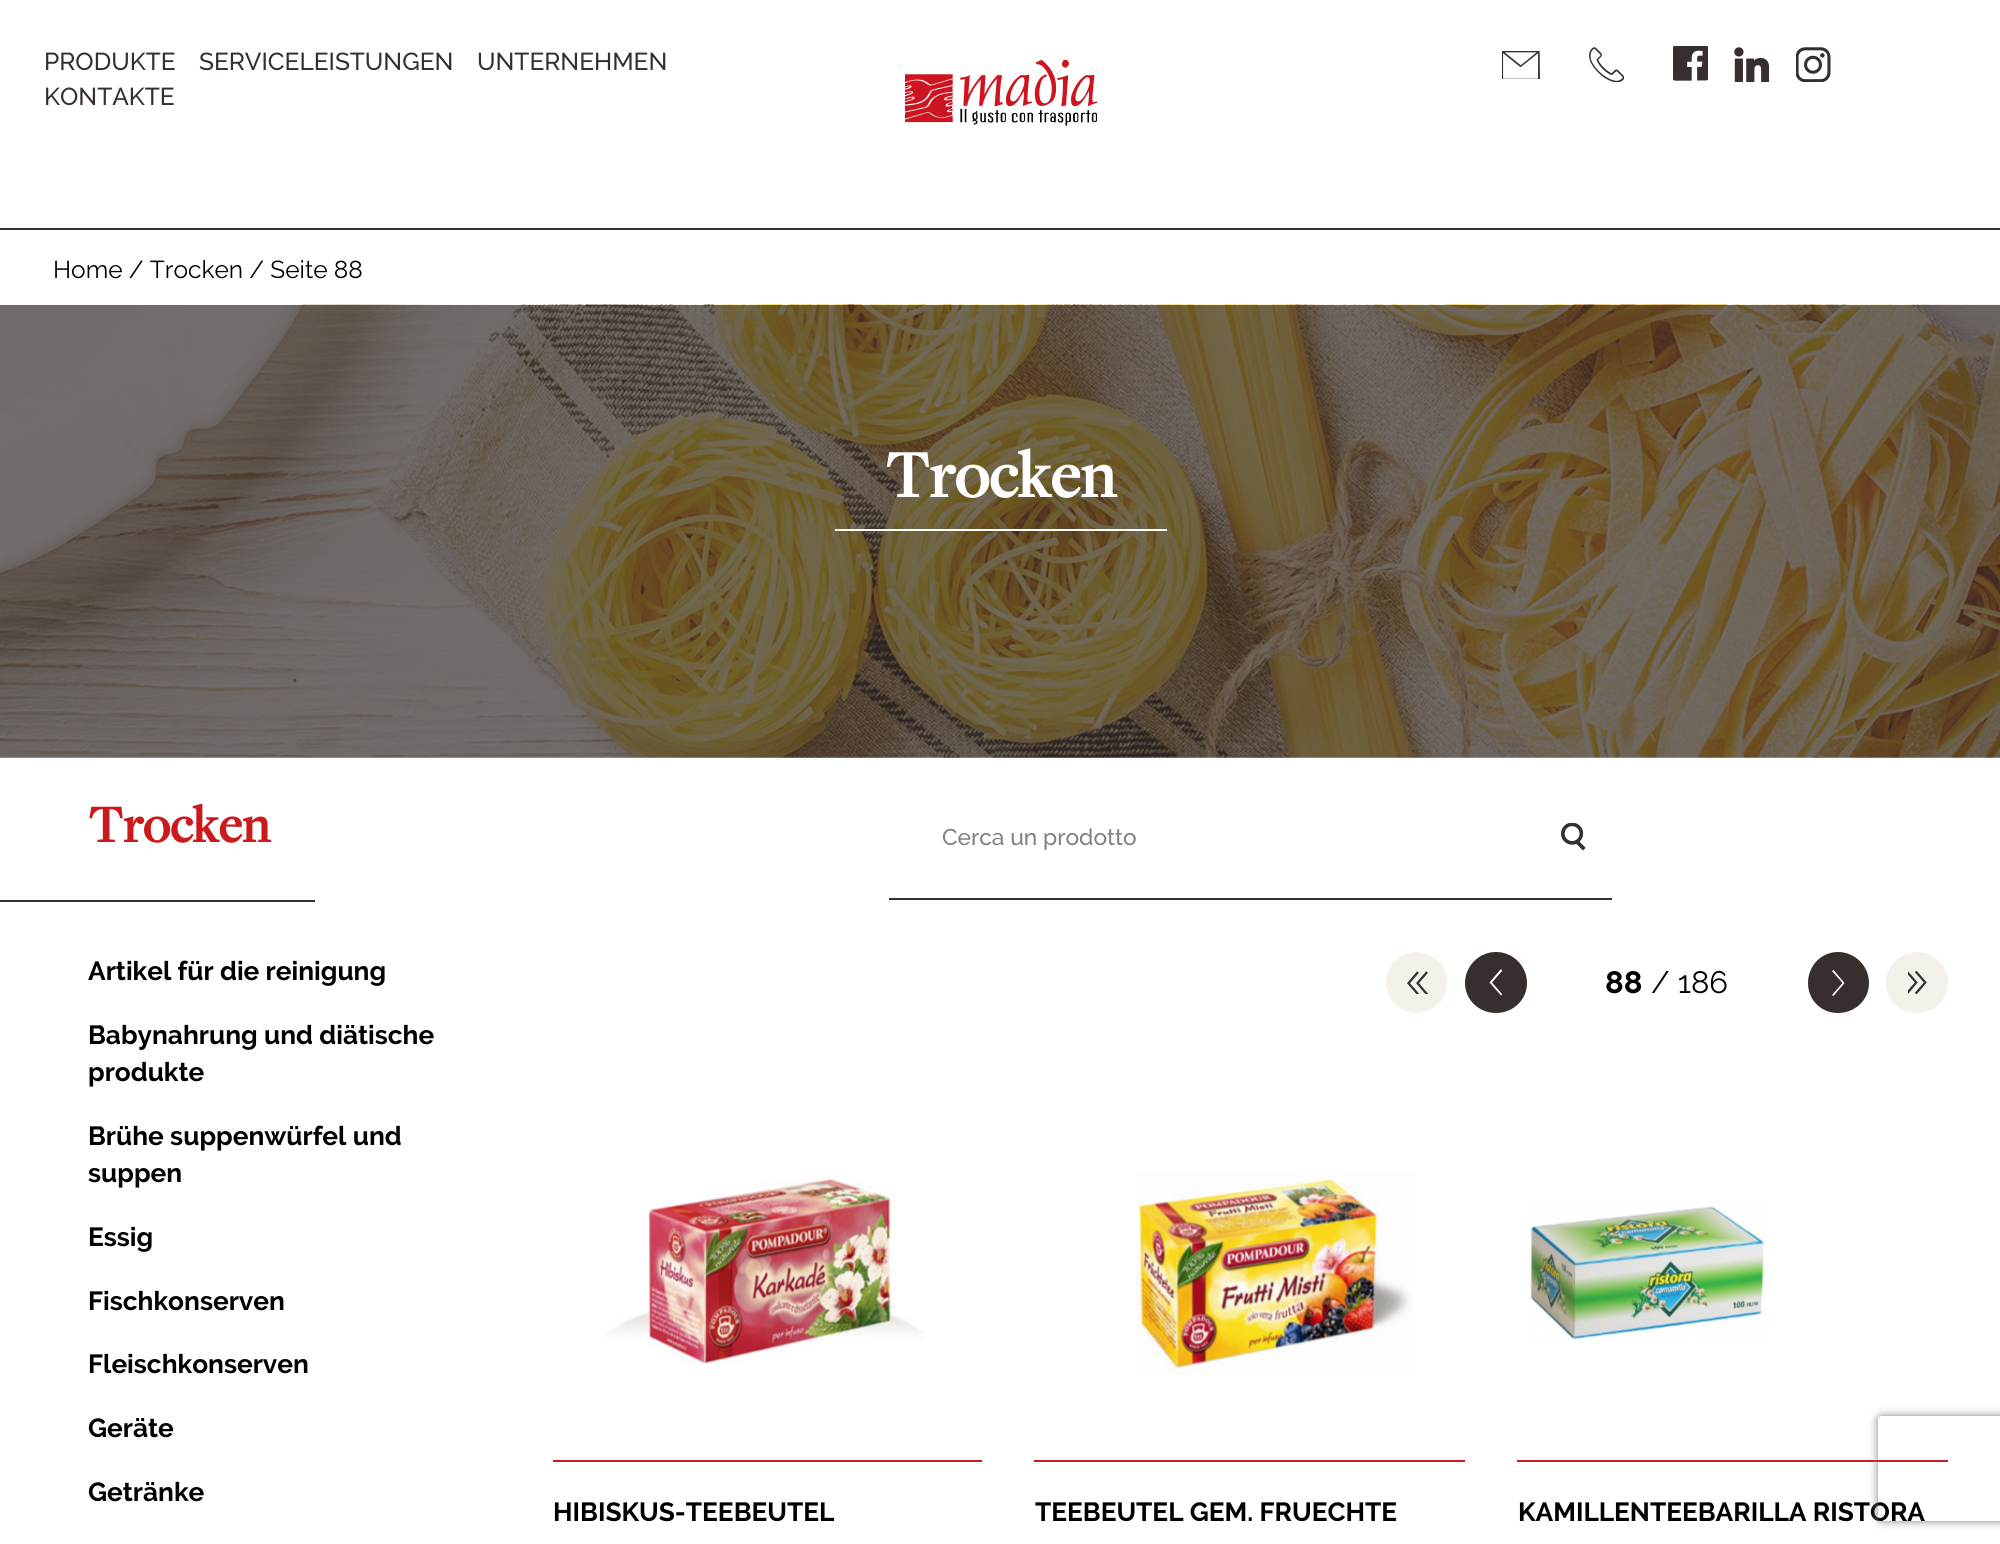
#include <cairo.h>
#include <math.h>
#include <stddef.h>

static cairo_t *c;
static void C(unsigned color){cairo_set_source_rgb(c, (color >> 16) / 255.0, (color >> 8 & 255) / 255.0, (color & 255) / 255.0);}
static void F(const char *family, double size, int italic, int bold){cairo_select_font_face(c, family, italic ? CAIRO_FONT_SLANT_ITALIC : CAIRO_FONT_SLANT_NORMAL,bold ? CAIRO_FONT_WEIGHT_BOLD : CAIRO_FONT_WEIGHT_NORMAL);cairo_set_font_size(c, size);}
static void T(double x, double y, const char *s){cairo_move_to(c, x, y);cairo_show_text(c, s);}
static void R(double x, double y, double w, double h){cairo_rectangle(c, x, y, w, h);cairo_fill(c);}
static void Q(double x, double y, double w, double h, double r){cairo_new_sub_path(c);cairo_arc(c, x + w - r, y + h - r, r, 0, M_PI / 2);cairo_arc(c, x + r, y + h - r, r, M_PI / 2, M_PI);cairo_arc(c, x + r, y + r, r, M_PI, 1.5 * M_PI);cairo_arc(c, x + w - r, y + r, r, 1.5 * M_PI, 2 * M_PI);cairo_close_path(c);}
static void S(double x, double y, double w, double h, double r, double blur, double alpha){cairo_push_group_with_content(c, CAIRO_CONTENT_ALPHA);cairo_set_operator(c, CAIRO_OPERATOR_SOURCE);for (int i = 15; i >= -15 && fmin(w, h) + blur * i / 3 > 0; i -= 2) {double e = blur * i / 6;cairo_set_source_rgba(c, 0, 0, 0, alpha * erfc((i - 1) / 8.5) / 2);Q(x - e, y - e, w + 2 * e, h + 2 * e, fmax(0, fmin(r + e + blur * .6, fmin(w, h) / 2 + e)));cairo_fill(c);}cairo_pattern_t *soft = cairo_pop_group(c);cairo_mask(c, soft);cairo_pattern_destroy(soft);}
static void I(const char *path, double x, double y, double w, double h){cairo_surface_t *image = cairo_image_surface_create_from_png(path);cairo_save(c);cairo_set_source_surface(c, image, x, y);cairo_rectangle(c, x, y, w, h);cairo_fill(c);cairo_restore(c);cairo_surface_destroy(image);}
int main(void) {
cairo_surface_t *surface = cairo_image_surface_create(CAIRO_FORMAT_RGB24, 2000, 1544);
c = cairo_create(surface);
cairo_font_options_t *options = cairo_font_options_create();
cairo_font_options_set_hint_metrics(options, CAIRO_HINT_METRICS_OFF);
cairo_font_options_set_hint_style(options, CAIRO_HINT_STYLE_NONE);
cairo_set_font_options(c, options);
cairo_set_miter_limit(c, 4);
C(0xffffff);
cairo_paint(c);
F("Raleway Medium",24.5,0,0);
C(0x372f2d);
T(44,70,"PRODUKTE");
T(199,70,"SERVICELEISTUNGEN");
T(477,70,"UNTERNEHMEN");
T(44,105,"KONTAKTE");
I("1.png",905,59,192,67);
I("2.png",1502,51,38,28);
I("3.png",1589,47,35,35);
I("4.png",1673,46,35,35);
I("5.png",1734,47,35,35);
I("6.png",1796,47,35,35);
R(0,228,2000,2);
F("Raleway",24.5,0,0);
C(0x000000);
T(53,278,"Home / Trocken / Seite 88");
I("7.png",0,304,2000,454);
F("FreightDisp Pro",68.5,0,1);
C(0xffffff);
T(885,497,"Trocken");
R(835,529,332,2);
F("FreightDisp Pro",54,0,1);
C(0xcc1a1c);
T(88,842,"Trocken");
C(0x372f2d);
R(0,900,315,2);
F("Raleway",26.25,0,1);
C(0x000000);
T(88,980,"Artikel für die reinigung");
T(88,1044,"Babynahrung und diätische");
T(88,1081,"produkte");
T(88,1145,"Brühe suppenwürfel und");
T(88,1182,"suppen");
T(88,1246,"Essig");
T(88,1310,"Fischkonserven");
T(88,1373,"Fleischkonserven");
T(88,1437,"Geräte");
T(88,1501,"Getränke");
C(0x372f2d);
R(889,898,723,2);
F("Raleway Medium",22.75,0,0);
C(0x808080);
T(942,845,"Cerca un prodotto");
I("8.png",1561,823,25,28);
C(0xf4f1eb);
cairo_arc(c,1416.5,982.5,30.5,0,2 * M_PI);
cairo_fill(c);
I("9.png",1407,971,21,23);
C(0x372f2d);
cairo_new_path(c);
cairo_move_to(c,1527,983);
cairo_curve_to(c,1527,1000,1513,1013,1496,1013);
cairo_curve_to(c,1479,1013,1465,1000,1465,983);
cairo_curve_to(c,1465,966,1479,952,1496,952);
cairo_curve_to(c,1513,952,1527,966,1527,983);
cairo_close_path(c);
cairo_fill(c);
C(0xffffff);
cairo_new_path(c);
cairo_move_to(c,1489.5,982.5);
cairo_line_to(c,1501,995.5);
cairo_line_to(c,1502,994.5);
cairo_line_to(c,1502,994);
cairo_line_to(c,1492,982.5);
cairo_line_to(c,1502,971);
cairo_line_to(c,1502,970);
cairo_line_to(c,1501.5,969.5);
cairo_line_to(c,1500.5,969.5);
cairo_close_path(c);
cairo_fill(c);
F("Raleway",31,0,1);
C(0x000000);
T(1605,993,"88");
F("Raleway",31,0,0);
T(1651,993,"/ 186");
C(0x372f2d);
cairo_new_path(c);
cairo_move_to(c,1808,983);
cairo_curve_to(c,1808,966,1821,952,1838,952);
cairo_curve_to(c,1855,952,1869,966,1869,983);
cairo_curve_to(c,1869,1000,1855,1013,1838,1013);
cairo_curve_to(c,1821,1013,1808,1000,1808,983);
cairo_close_path(c);
cairo_fill(c);
C(0xffffff);
cairo_new_path(c);
cairo_move_to(c,1844.5,983);
cairo_line_to(c,1833.5,996);
cairo_line_to(c,1832,995);
cairo_line_to(c,1842.5,983);
cairo_line_to(c,1832,971);
cairo_line_to(c,1833.5,970);
cairo_close_path(c);
cairo_fill(c);
C(0xf4f1eb);
cairo_new_path(c);
cairo_move_to(c,1917,1013);
cairo_curve_to(c,1900,1013,1886,1000,1886,983);
cairo_curve_to(c,1886,966,1900,952,1917,952);
cairo_curve_to(c,1934,952,1948,966,1948,983);
cairo_curve_to(c,1948,1000,1934,1013,1917,1013);
cairo_close_path(c);
cairo_fill(c);
I("10.png",1908,971,19,23);
I("11.png",606,1173,319,192);
C(0xcc1a1c);
R(553,1460,429,2);
F("Raleway",26.25,0,1);
C(0x000000);
T(553,1521,"HIBISKUS-TEEBEUTEL");
I("12.png",1137,1173,276,201);
C(0xcc1a1c);
R(1034,1460,431,2);
C(0x000000);
T(1035,1521,"TEEBEUTEL GEM. FRUECHTE");
I("13.png",1528,1199,238,141);
C(0xcc1a1c);
R(1517,1460,431,2);
C(0x000000);
T(1518,1521,"KAMILLENTEEBARILLA RISTORA");
cairo_save(c);
cairo_set_fill_rule(c,CAIRO_FILL_RULE_EVEN_ODD);
cairo_new_path(c);
cairo_move_to(c,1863,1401);
cairo_line_to(c,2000,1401);
cairo_line_to(c,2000,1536);
cairo_line_to(c,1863,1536);
cairo_close_path(c);
cairo_move_to(c,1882,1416);
cairo_line_to(c,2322,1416);
cairo_curve_to(c,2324,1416,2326,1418,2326,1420);
cairo_line_to(c,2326,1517);
cairo_curve_to(c,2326,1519,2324,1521,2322,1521);
cairo_line_to(c,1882,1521);
cairo_curve_to(c,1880,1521,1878,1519,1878,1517);
cairo_line_to(c,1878,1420);
cairo_curve_to(c,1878,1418,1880,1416,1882,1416);
cairo_close_path(c);
cairo_clip(c);
C(0x808080);
S(1878,1416,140,105,4,4.5,1);
cairo_restore(c);
cairo_surface_write_to_png(surface, "o.png");
cairo_font_options_destroy(options);
cairo_destroy(c);
cairo_surface_destroy(surface);
return 0;
}
